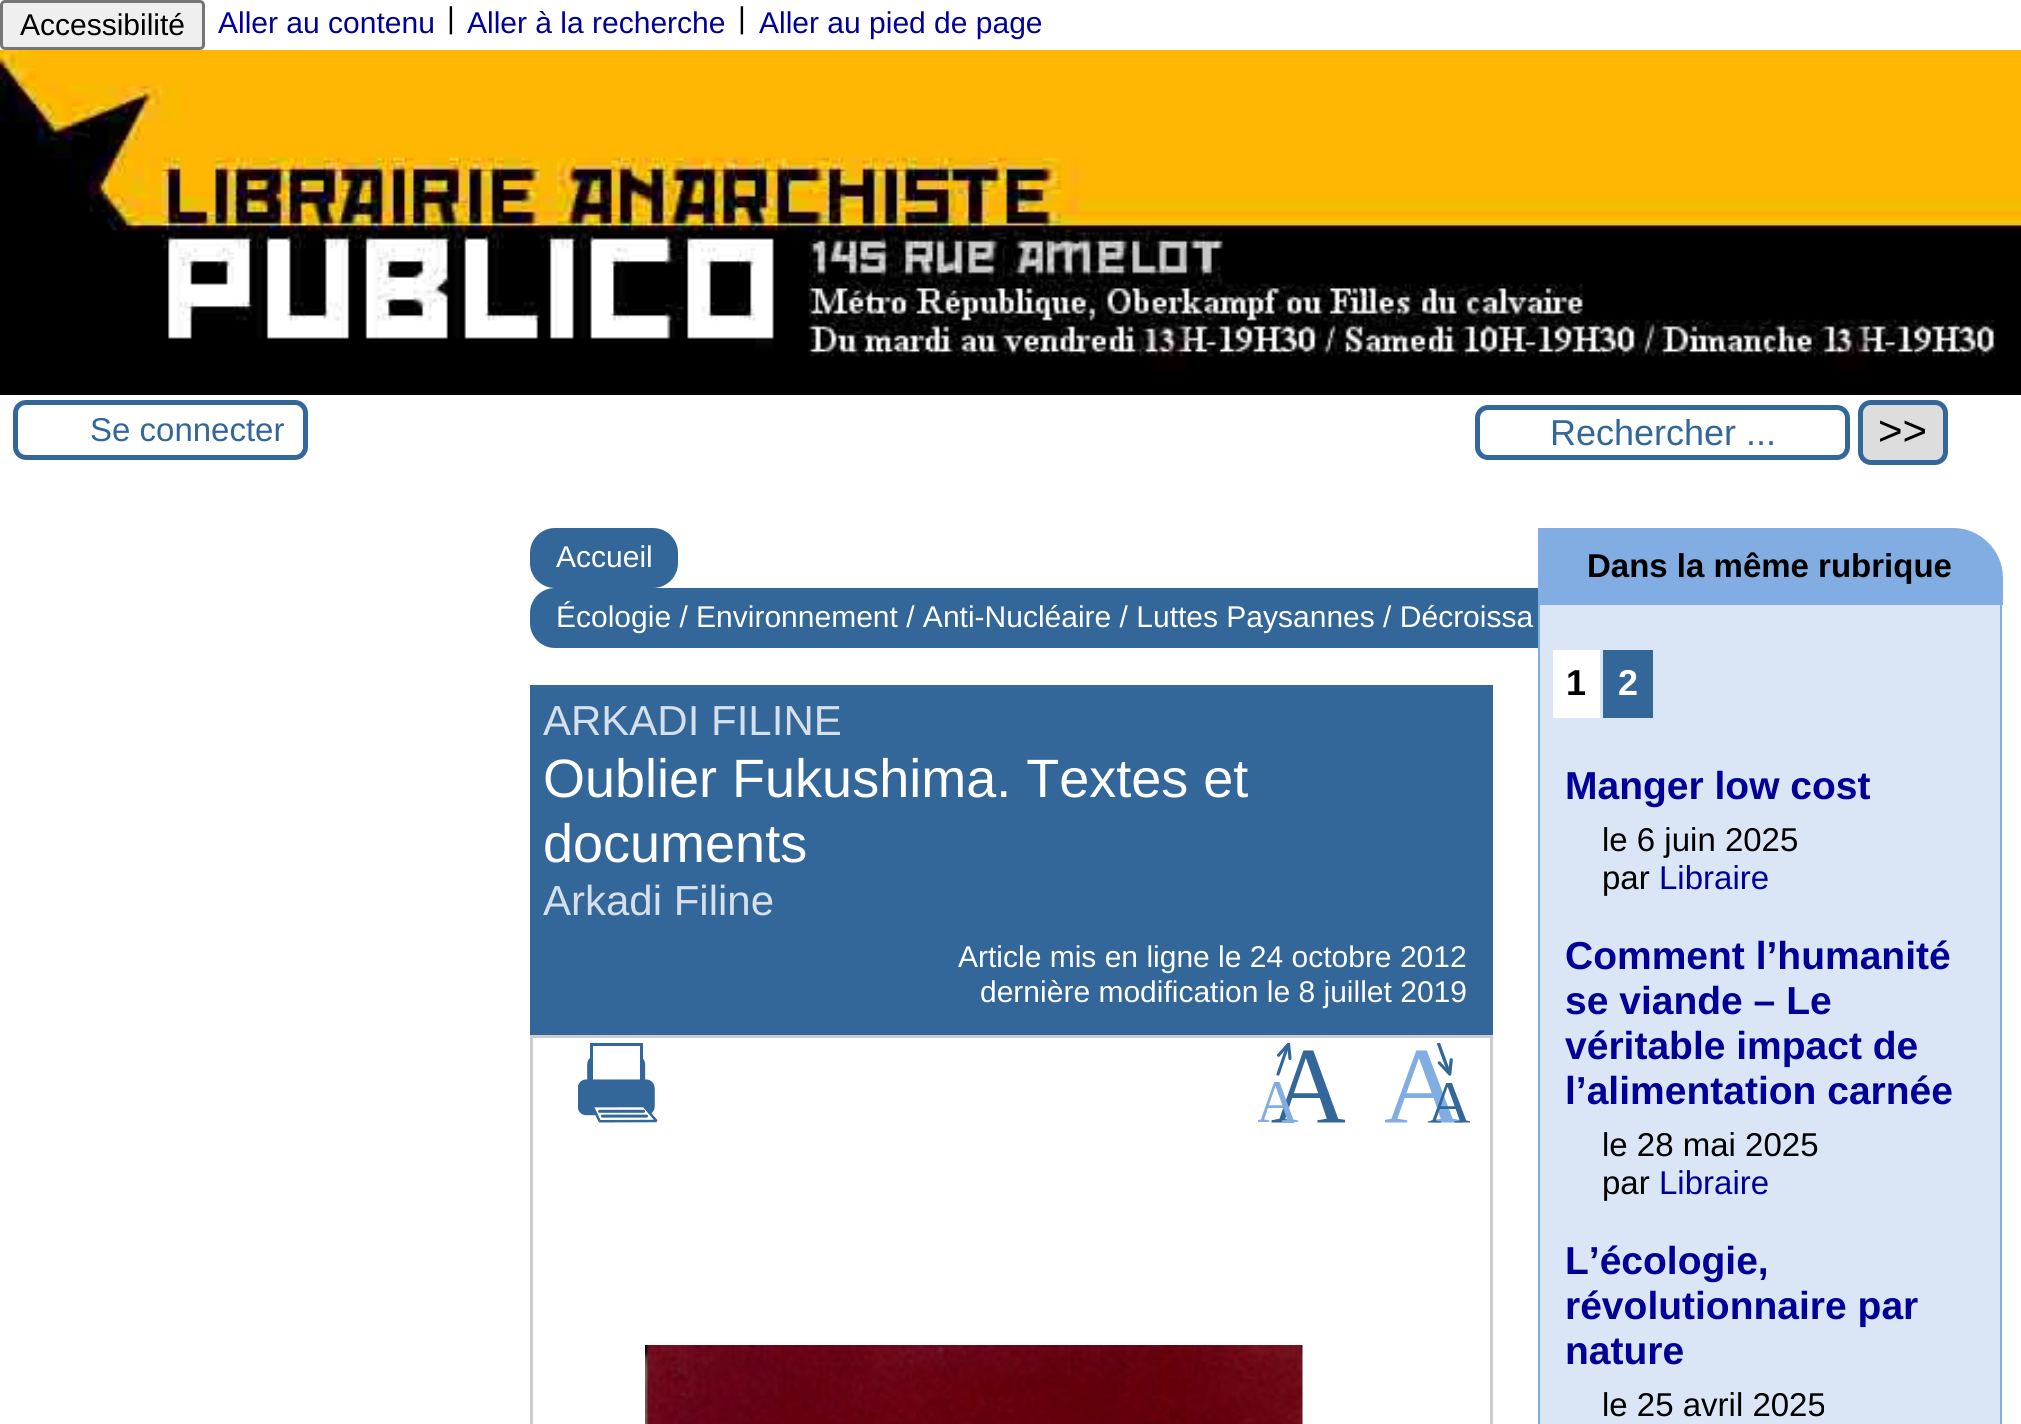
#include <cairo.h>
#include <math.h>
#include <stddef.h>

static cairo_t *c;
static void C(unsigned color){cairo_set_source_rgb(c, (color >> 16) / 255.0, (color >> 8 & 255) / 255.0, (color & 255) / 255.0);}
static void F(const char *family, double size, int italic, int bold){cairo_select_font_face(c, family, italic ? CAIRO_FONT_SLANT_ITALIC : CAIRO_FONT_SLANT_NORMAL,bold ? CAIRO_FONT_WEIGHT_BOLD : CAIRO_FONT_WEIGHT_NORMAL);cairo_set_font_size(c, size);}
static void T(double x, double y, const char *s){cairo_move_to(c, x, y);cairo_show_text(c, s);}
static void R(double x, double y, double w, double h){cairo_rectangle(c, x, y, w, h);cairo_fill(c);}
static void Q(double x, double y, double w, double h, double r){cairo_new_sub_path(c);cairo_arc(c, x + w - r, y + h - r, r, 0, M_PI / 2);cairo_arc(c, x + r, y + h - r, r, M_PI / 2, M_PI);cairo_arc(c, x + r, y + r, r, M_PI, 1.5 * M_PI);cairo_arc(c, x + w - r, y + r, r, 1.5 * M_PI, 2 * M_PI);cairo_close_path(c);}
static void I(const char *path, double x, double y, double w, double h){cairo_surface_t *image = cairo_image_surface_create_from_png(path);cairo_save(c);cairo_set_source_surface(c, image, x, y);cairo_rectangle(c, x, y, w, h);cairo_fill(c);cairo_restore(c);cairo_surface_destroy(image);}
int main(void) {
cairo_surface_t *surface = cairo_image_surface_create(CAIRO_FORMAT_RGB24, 2021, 1424);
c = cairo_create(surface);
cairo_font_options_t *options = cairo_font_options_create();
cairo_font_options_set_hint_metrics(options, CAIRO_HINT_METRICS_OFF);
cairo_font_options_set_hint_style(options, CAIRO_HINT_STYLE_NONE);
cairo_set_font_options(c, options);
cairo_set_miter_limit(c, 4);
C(0xffffff);
cairo_paint(c);
C(0x000000);
R(0,372,2021,23);
C(0xefefef);
Q(1.5,1.5,202,47,3.5);
cairo_fill_preserve(c);
C(0x767676);
cairo_set_line_width(c,3);
cairo_stroke(c);
F("Liberation Sans",30,0,0);
C(0x000000);
T(20,35,"Accessibilité");
C(0x000099);
T(218,33,"Aller au contenu");
C(0x000000);
T(447,28,"|");
C(0x000099);
T(467,33,"Aller à la recherche");
C(0x000000);
T(738,28,"|");
C(0x000099);
T(759,33,"Aller au pied de page");
I("1.png",0,50,2021,322);
Q(15.5,402.5,290,55,10.5);
C(0x336699);
cairo_set_line_width(c,5);
cairo_stroke(c);
F("Liberation Sans",33,0,0);
T(90,441,"Se connecter");
Q(1477.5,407.5,370,50,10.5);
cairo_stroke(c);
F("Liberation Sans",36,0,0);
T(1550,445,"Rechercher ...");
C(0xdddddd);
Q(1860.5,402.5,85,60,10.5);
cairo_fill_preserve(c);
C(0x336699);
cairo_stroke(c);
F("Liberation Sans",42,0,0);
C(0x000000);
T(1878,445,">>");
C(0x336699);
Q(530,528,148,60,25);
cairo_fill(c);
F("Liberation Sans",30,0,0);
C(0xffffff);
T(556,567,"Accueil");
C(0x336699);
Q(530,588,1075,60,25);
cairo_fill(c);
C(0xffffff);
T(556,627,"Écologie / Environnement / Anti-Nucléaire / Luttes Paysannes / Décroissa");
C(0x336699);
R(530,685,963,350);
F("Liberation Sans",42,0,0);
C(0xd6e0eb);
T(543,735,"ARKADI FILINE");
F("Liberation Sans",54,0,0);
C(0xffffff);
T(543,797,"Oublier Fukushima. Textes et");
T(543,862,"documents");
F("Liberation Sans",42,0,0);
C(0xd6e0eb);
T(543,915,"Arkadi Filine");
F("Liberation Sans",30,0,0);
C(0xffffff);
T(958,967,"Article mis en ligne le 24 octobre 2012");
T(980,1002,"dernière modification le 8 juillet 2019");
cairo_rectangle(c,531.5,1036.5,960,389);
C(0xcccccc);
cairo_set_line_width(c,3);
cairo_stroke(c);
I("2.png",578,1043,80,80);
I("3.png",1258,1043,87,80);
I("4.png",1385,1043,85,80);
I("5.png",645,1345,658,79);
C(0x82ade2);
cairo_new_path(c);
cairo_move_to(c,1538,528);
cairo_line_to(c,1953,528);
cairo_curve_to(c,1980.5,528,2003,550.5,2003,578);
cairo_line_to(c,2003,605);
cairo_line_to(c,1538,605);
cairo_close_path(c);
cairo_fill(c);
F("Liberation Sans",33,0,1);
C(0x000000);
T(1587,577,"Dans la même rubrique");
C(0xdae6f6);
cairo_new_path(c);
cairo_move_to(c,1540,605);
cairo_line_to(c,2000,605);
cairo_line_to(c,2000,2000);
cairo_line_to(c,1562,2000);
cairo_curve_to(c,1550,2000,1540,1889,1540,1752);
cairo_close_path(c);
cairo_fill(c);
C(0x82ade2);
cairo_set_fill_rule(c,CAIRO_FILL_RULE_EVEN_ODD);
cairo_new_path(c);
cairo_move_to(c,1538,605);
cairo_line_to(c,2002,605);
cairo_line_to(c,2002,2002);
cairo_line_to(c,1562,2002);
cairo_curve_to(c,1549,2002,1538,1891,1538,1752);
cairo_close_path(c);
cairo_move_to(c,1540,605);
cairo_line_to(c,2000,605);
cairo_line_to(c,2000,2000);
cairo_line_to(c,1562,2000);
cairo_curve_to(c,1550,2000,1540,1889,1540,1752);
cairo_close_path(c);
cairo_fill(c);
C(0xffffff);
R(1553,650,47,68);
F("Liberation Sans",36,0,1);
C(0x000000);
T(1566,695,"1");
C(0x336699);
R(1603,650,50,68);
C(0xffffff);
T(1618,695,"2");
F("Liberation Sans",39,0,1);
C(0x000099);
T(1565,799,"Manger low cost");
F("Liberation Sans",33,0,0);
C(0x000000);
T(1602,851,"le 6 juin 2025");
T(1602,889,"par");
C(0x000099);
T(1659,889,"Libraire");
F("Liberation Sans",39,0,1);
T(1565,969,"Comment l’humanité");
T(1565,1014,"se viande – Le");
T(1565,1059,"véritable impact de");
T(1565,1104,"l’alimentation carnée");
F("Liberation Sans",33,0,0);
C(0x000000);
T(1602,1156,"le 28 mai 2025");
T(1602,1194,"par");
C(0x000099);
T(1659,1194,"Libraire");
F("Liberation Sans",39,0,1);
T(1565,1274,"L’écologie,");
T(1565,1319,"révolutionnaire par");
T(1565,1364,"nature");
F("Liberation Sans",33,0,0);
C(0x000000);
T(1602,1416,"le 25 avril 2025");
cairo_surface_write_to_png(surface, "o.png");
cairo_font_options_destroy(options);
cairo_destroy(c);
cairo_surface_destroy(surface);
return 0;
}
